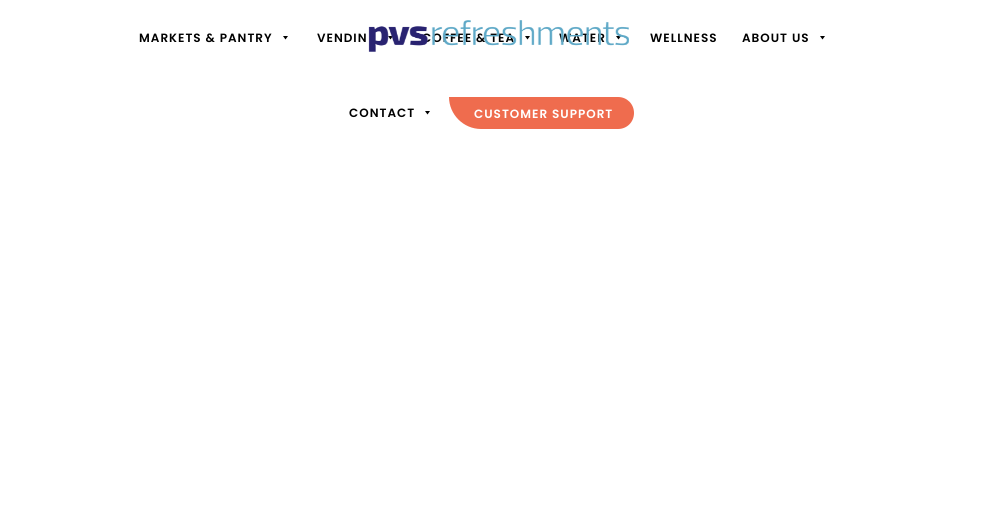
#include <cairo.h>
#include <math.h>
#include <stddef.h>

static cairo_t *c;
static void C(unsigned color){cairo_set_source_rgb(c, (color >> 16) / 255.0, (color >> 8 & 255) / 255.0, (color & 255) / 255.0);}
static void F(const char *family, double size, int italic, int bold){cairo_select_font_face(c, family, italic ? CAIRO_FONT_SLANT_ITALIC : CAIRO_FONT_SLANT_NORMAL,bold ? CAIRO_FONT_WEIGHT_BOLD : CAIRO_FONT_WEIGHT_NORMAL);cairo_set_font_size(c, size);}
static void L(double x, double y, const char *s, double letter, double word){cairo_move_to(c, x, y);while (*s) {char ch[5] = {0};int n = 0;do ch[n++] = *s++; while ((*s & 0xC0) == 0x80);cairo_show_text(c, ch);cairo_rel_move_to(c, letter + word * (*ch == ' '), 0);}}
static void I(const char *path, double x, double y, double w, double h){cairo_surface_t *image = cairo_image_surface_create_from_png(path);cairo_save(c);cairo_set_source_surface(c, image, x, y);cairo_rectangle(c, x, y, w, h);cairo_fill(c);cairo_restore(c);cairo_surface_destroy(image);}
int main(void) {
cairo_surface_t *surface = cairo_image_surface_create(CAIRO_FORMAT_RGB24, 997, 527);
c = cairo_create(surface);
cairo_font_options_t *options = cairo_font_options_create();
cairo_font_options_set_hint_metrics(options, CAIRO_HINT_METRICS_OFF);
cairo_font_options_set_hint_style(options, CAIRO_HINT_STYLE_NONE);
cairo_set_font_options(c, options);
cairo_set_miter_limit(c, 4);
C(0xffffff);
cairo_paint(c);
C(0x000000);
cairo_new_path(c);
cairo_move_to(c,393,36);
cairo_line_to(c,390.5,39.5);
cairo_line_to(c,388,36);
cairo_close_path(c);
cairo_fill(c);
F("Poppins SemiBold",12,0,0);
L(422,42,"COFFEE & TEA",1,0);
cairo_new_path(c);
cairo_move_to(c,530,36);
cairo_line_to(c,527.5,39.5);
cairo_line_to(c,525,36);
cairo_close_path(c);
cairo_fill(c);
L(559,42,"WATER",1,0);
cairo_new_path(c);
cairo_move_to(c,621,36);
cairo_line_to(c,618.5,39.5);
cairo_line_to(c,616,36);
cairo_close_path(c);
cairo_fill(c);
I("1.png",368,20,261,32);
L(139,42,"MARKETS & PANTRY",1,0);
cairo_new_path(c);
cairo_move_to(c,288,36);
cairo_line_to(c,285.5,39.5);
cairo_line_to(c,283,36);
cairo_close_path(c);
cairo_fill(c);
L(317,42,"VENDIN",1,0);
L(650,42,"WELLNESS",1,0);
L(742,42,"ABOUT US",1,0);
cairo_new_path(c);
cairo_move_to(c,825,36);
cairo_line_to(c,822.5,39.5);
cairo_line_to(c,820,36);
cairo_close_path(c);
cairo_fill(c);
L(349,117,"CONTACT",1,0);
cairo_new_path(c);
cairo_move_to(c,430,111);
cairo_line_to(c,427.5,114.5);
cairo_line_to(c,425,111);
cairo_close_path(c);
cairo_fill(c);
C(0xef6c4e);
cairo_new_path(c);
cairo_move_to(c,449,97);
cairo_line_to(c,618,97);
cairo_curve_to(c,627,97,634,104,634,113);
cairo_curve_to(c,634,122,627,129,618,129);
cairo_line_to(c,481,129);
cairo_curve_to(c,463.5,129,449,114.5,449,97);
cairo_close_path(c);
cairo_fill(c);
C(0xffffff);
L(474,118,"CUSTOMER SUPPORT",1,0);
cairo_surface_write_to_png(surface, "o.png");
cairo_font_options_destroy(options);
cairo_destroy(c);
cairo_surface_destroy(surface);
return 0;
}
